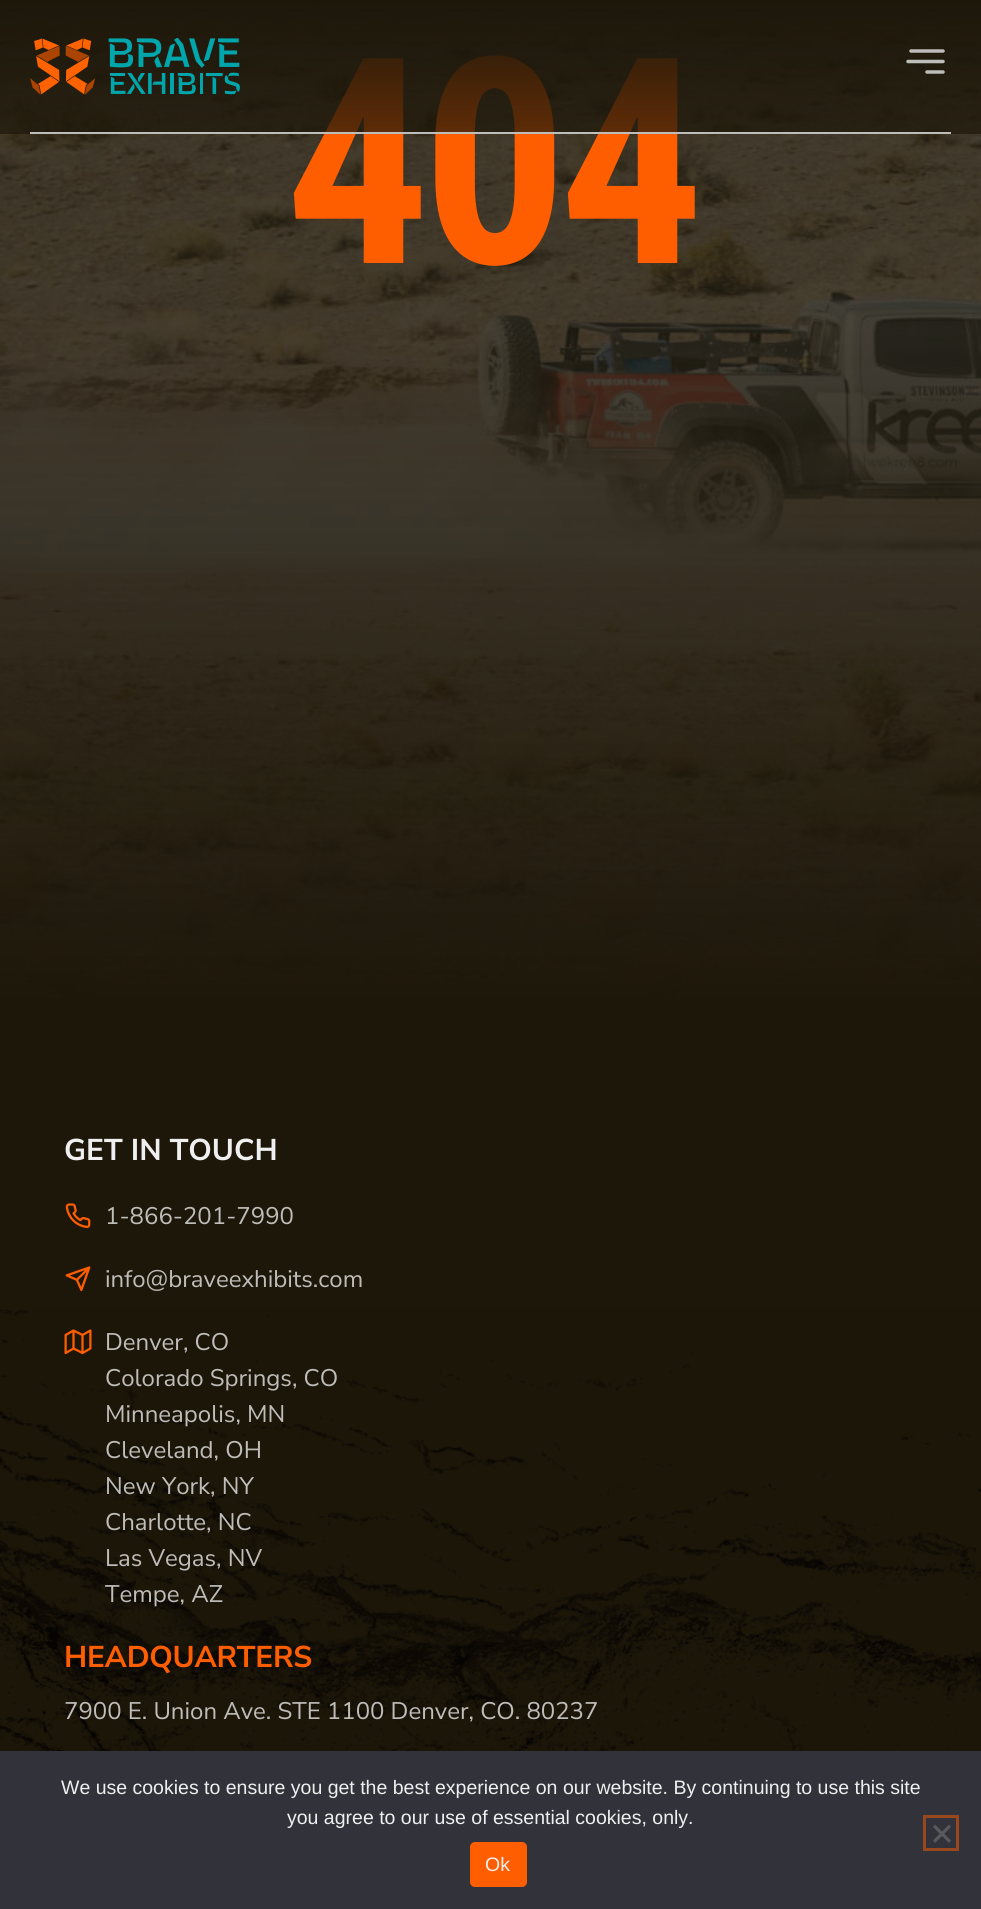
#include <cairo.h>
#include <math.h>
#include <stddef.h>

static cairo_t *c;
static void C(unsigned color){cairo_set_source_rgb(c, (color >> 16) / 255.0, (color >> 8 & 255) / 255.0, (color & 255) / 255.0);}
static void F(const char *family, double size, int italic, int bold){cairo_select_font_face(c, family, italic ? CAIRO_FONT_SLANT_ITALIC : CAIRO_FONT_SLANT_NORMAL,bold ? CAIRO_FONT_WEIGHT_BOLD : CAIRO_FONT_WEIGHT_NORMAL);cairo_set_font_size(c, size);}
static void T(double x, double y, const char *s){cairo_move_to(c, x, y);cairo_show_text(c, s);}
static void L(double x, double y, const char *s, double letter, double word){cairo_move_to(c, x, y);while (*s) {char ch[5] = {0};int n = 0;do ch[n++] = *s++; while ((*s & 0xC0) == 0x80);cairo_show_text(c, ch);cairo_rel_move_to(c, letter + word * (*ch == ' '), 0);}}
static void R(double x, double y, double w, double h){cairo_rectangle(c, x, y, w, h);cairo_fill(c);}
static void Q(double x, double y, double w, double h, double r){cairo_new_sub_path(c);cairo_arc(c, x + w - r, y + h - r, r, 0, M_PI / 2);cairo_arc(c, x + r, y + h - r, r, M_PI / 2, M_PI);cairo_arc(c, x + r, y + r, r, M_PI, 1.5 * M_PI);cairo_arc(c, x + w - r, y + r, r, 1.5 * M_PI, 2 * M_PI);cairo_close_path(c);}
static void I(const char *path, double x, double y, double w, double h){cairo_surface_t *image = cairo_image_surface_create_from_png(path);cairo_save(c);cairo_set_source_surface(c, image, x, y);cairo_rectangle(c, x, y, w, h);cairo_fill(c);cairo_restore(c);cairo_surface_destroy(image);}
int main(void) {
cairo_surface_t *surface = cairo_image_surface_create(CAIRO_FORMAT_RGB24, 981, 1909);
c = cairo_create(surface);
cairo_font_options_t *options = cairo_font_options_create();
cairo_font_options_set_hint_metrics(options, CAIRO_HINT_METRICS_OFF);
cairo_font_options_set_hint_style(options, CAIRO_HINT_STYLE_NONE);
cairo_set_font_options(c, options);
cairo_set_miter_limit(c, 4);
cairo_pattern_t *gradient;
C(0x1d170a);
cairo_paint(c);
I("2.png",0,3,981,1002);
F("Roboto Condensed",288,0,1);
C(0xff5e00);
L(285,263,"404",-8.5,0);
gradient = cairo_pattern_create_linear(491,0,491,134);
cairo_pattern_add_color_stop_rgba(gradient,0,0.114,0.09,0.039,1);
cairo_pattern_add_color_stop_rgba(gradient,1,0.114,0.09,0.039,.71);
cairo_set_source(c,gradient);
cairo_pattern_destroy(gradient);
R(0,3,981,131);
C(0xbfbdb9);
R(30,132,921,2);
I("1.png",30,38,210,57);
cairo_new_path(c);
cairo_move_to(c,908,61.5);
cairo_line_to(c,943,61.5);
cairo_move_to(c,911,51);
cairo_line_to(c,943,51);
cairo_move_to(c,927,72);
cairo_line_to(c,943,72);
cairo_set_line_width(c,3.5);
cairo_set_line_cap(c,CAIRO_LINE_CAP_ROUND);
cairo_set_line_join(c,CAIRO_LINE_JOIN_ROUND);
cairo_stroke(c);
I("3.png",0,1309,981,442);
F("Nunito Sans",30,0,1);
C(0xefefef);
T(64,1160,"GET IN TOUCH");
I("4.png",65,1203,26,25);
F("Nunito Sans",24,0,0);
C(0xbfbdb9);
T(105,1224,"1-866-201-7990");
I("5.png",65,1266,26,26);
T(105,1287,"info@braveexhibits.com");
I("6.png",64,1329,28,26);
T(105,1350,"Denver, CO");
T(105,1386,"Colorado Springs, CO");
T(105,1422,"Minneapolis, MN");
T(105,1458,"Cleveland, OH");
T(105,1494,"New York, NY");
T(105,1530,"Charlotte, NC");
T(105,1566,"Las Vegas, NV");
T(105,1602,"Tempe, AZ");
F("Nunito Sans",30,0,1);
C(0xff5e00);
L(64,1667,"HEADQUARTERS",-.25,0);
F("Nunito Sans",24,0,0);
C(0xbfbdb9);
T(64,1719,"7900 E. Union Ave. STE 1100 Denver, CO. 80237");
C(0x32323a);
R(0,1751,981,158);
F("Liberation Sans",19.5,0,0);
C(0xefefef);
T(61,1794,"We use cookies to ensure you get the best experience on our website. By continuing to use this site");
T(287,1824,"you agree to our use of essential cookies, only.");
cairo_rectangle(c,924.5,1816.5,33,33);
C(0x99481d);
cairo_set_line_width(c,3);
cairo_set_line_cap(c,CAIRO_LINE_CAP_BUTT);
cairo_set_line_join(c,CAIRO_LINE_JOIN_MITER);
cairo_stroke(c);
C(0x59595d);
cairo_new_path(c);
cairo_move_to(c,949,1824.5);
cairo_line_to(c,951,1827);
cairo_line_to(c,935,1843);
cairo_line_to(c,933,1840.5);
cairo_close_path(c);
cairo_fill(c);
cairo_new_path(c);
cairo_move_to(c,933,1827);
cairo_line_to(c,935,1824.5);
cairo_line_to(c,951,1840.5);
cairo_line_to(c,949,1843);
cairo_close_path(c);
cairo_fill(c);
C(0xff5e00);
Q(470,1842,57,45,5);
cairo_fill(c);
C(0xefefef);
T(485,1871,"Ok");
cairo_surface_write_to_png(surface, "o.png");
cairo_font_options_destroy(options);
cairo_destroy(c);
cairo_surface_destroy(surface);
return 0;
}
